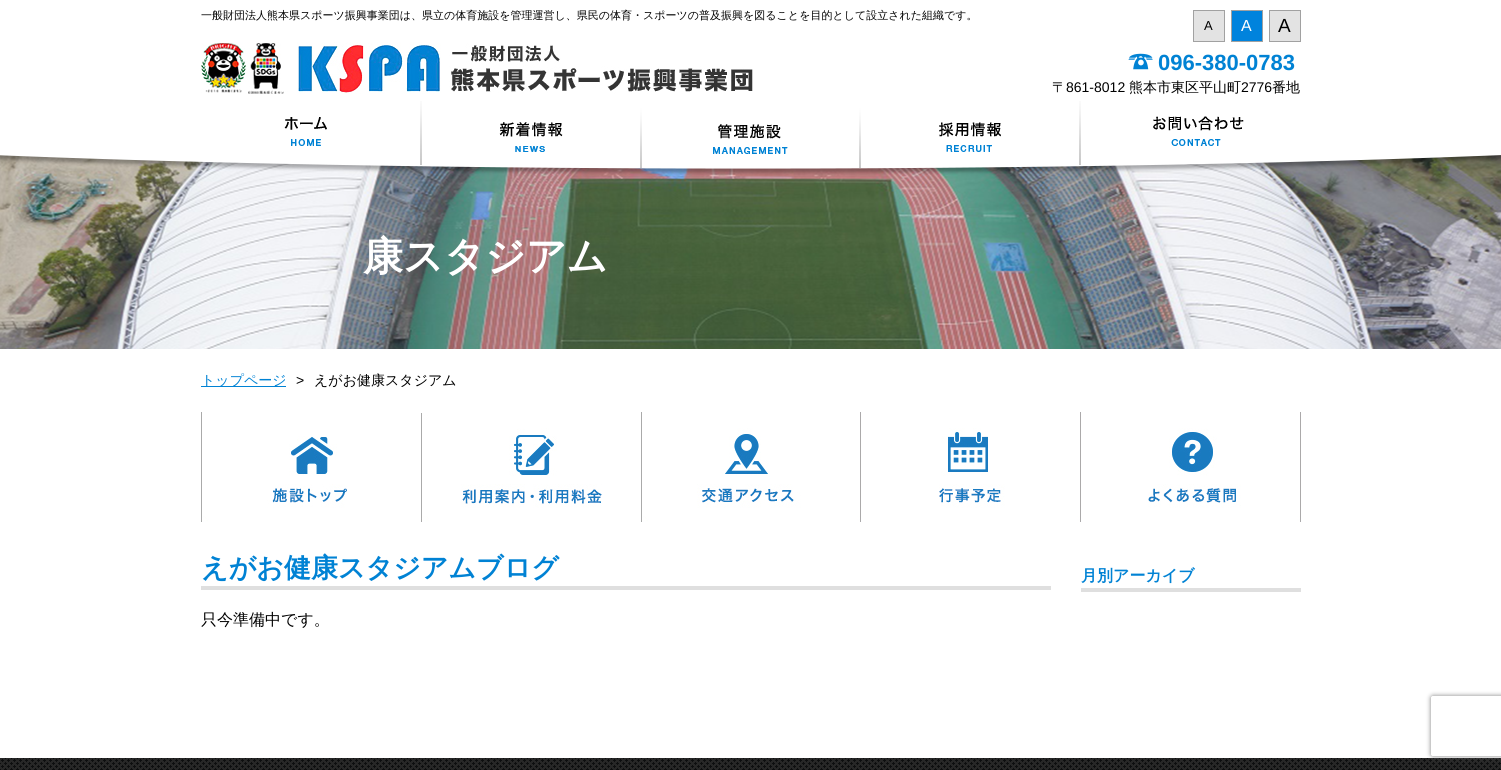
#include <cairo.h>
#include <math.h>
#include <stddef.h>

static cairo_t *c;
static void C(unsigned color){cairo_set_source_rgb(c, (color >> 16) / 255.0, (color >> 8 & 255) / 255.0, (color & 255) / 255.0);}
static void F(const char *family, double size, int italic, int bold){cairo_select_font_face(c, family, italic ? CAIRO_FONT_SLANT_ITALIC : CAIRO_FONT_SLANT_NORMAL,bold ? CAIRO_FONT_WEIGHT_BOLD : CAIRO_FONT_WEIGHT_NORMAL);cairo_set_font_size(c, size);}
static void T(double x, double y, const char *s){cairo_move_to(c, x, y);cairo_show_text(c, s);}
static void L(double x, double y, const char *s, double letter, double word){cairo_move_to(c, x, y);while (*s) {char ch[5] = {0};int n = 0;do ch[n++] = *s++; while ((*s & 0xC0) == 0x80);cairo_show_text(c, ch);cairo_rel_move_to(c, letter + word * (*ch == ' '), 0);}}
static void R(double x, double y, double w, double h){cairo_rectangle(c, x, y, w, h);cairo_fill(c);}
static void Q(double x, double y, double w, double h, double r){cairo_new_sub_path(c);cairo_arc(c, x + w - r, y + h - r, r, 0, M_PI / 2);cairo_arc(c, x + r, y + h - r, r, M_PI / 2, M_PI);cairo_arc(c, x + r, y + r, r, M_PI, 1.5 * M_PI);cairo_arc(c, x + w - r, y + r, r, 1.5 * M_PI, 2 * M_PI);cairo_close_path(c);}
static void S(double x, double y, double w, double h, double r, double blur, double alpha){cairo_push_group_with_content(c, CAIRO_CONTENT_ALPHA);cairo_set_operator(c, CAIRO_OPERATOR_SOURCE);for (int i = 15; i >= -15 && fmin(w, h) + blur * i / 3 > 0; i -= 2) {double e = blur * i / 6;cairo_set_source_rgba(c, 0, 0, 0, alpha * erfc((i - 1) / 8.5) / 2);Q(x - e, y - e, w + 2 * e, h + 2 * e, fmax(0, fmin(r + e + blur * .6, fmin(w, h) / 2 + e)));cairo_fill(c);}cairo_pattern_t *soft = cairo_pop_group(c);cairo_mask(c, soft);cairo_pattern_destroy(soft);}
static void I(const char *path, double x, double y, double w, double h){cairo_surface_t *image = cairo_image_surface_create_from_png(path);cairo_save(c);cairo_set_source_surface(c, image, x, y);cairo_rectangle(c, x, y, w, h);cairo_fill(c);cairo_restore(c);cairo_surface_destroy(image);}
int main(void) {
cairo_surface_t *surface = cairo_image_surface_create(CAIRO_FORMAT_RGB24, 1501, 770);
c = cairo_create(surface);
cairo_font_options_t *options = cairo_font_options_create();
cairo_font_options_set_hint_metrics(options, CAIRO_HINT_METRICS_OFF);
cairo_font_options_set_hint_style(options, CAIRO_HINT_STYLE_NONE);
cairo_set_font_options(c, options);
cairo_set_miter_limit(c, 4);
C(0xffffff);
cairo_paint(c);
I("9.png",0,155,1501,194);
I("1.png",0,101,1501,74);
F("WenQuanYi Zen Hei Medium",11,0,0);
C(0x000000);
T(201,19,"一般財団法人熊本県スポーツ振興事業団は、県立の体育施設を管理運営し、県民の体育・スポーツの普及振興を図ることを目的として設立された組織です。");
C(0xe3e3e3);
cairo_rectangle(c,1193.5,10.5,31,31);
cairo_fill_preserve(c);
C(0xa1a1a1);
cairo_set_line_width(c,1);
cairo_stroke(c);
F("Liberation Sans",13,0,0);
C(0x000000);
T(1204,30,"A");
C(0x0083dd);
cairo_rectangle(c,1231.5,10.5,31,31);
cairo_fill_preserve(c);
C(0xa1a1a1);
cairo_stroke(c);
F("Liberation Sans",16,0,0);
C(0xffffff);
T(1241,31,"A");
C(0xe3e3e3);
cairo_rectangle(c,1269.5,10.5,31,31);
cairo_fill_preserve(c);
C(0xa1a1a1);
cairo_stroke(c);
F("Liberation Sans",19,0,0);
C(0x000000);
T(1278,32,"A");
I("2.png",201,42,552,52);
I("3.png",1128,53,25,17);
F("Liberation Sans",22,0,1);
C(0x0082d4);
T(1158,70,"096-380-0783");
F("WenQuanYi Zen Hei Medium",14,0,0);
C(0x000000);
T(1052,92,"〒");
F("Liberation Sans",14,0,0);
T(1066,92,"861-8012");
F("WenQuanYi Zen Hei Medium",14,0,0);
T(1129,92,"熊本市東区平山町");
F("Liberation Sans",14,0,0);
T(1241,92,"2776");
F("WenQuanYi Zen Hei Medium",14,0,0);
T(1272,92,"番地");
I("4.png",284,117,43,29);
I("5.png",499,122,64,30);
I("6.png",713,124,75,30);
I("7.png",939,122,62,30);
I("8.png",1153,116,91,30);
F("WenQuanYi Zen Hei",40,0,1);
C(0xffffff);
T(363,270,"康スタジアム");
C(0x0082d4);
R(201,386,85,1);
F("WenQuanYi Zen Hei Medium",14,0,0);
T(201,385,"トップページ");
F("Liberation Sans",14,0,0);
C(0x000000);
L(296,385,">",10,0);
F("WenQuanYi Zen Hei Medium",14,0,0);
T(314,385,"えがお健康スタジアム");
I("10.png",201,412,146,110);
I("11.png",421,413,181,109);
I("12.png",641,412,220,110);
I("13.png",939,412,142,110);
I("14.png",1148,412,153,110);
C(0xdfdfdf);
R(201,586,850,4);
F("WenQuanYi Zen Hei",27,0,1);
C(0x0082d4);
T(201,577,"えがお健康スタジアムブログ");
F("WenQuanYi Zen Hei Medium",16,0,0);
C(0x000000);
T(201,625,"只今準備中です。");
C(0xdfdfdf);
R(1081,588,220,4);
F("WenQuanYi Zen Hei",16,0,1);
C(0x0082d4);
T(1081,581,"月別アーカイブ");
I("15.png",0,758,1501,12);
cairo_save(c);
cairo_set_fill_rule(c,CAIRO_FILL_RULE_EVEN_ODD);
cairo_new_path(c);
cairo_move_to(c,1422,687);
cairo_line_to(c,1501,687);
cairo_line_to(c,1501,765);
cairo_line_to(c,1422,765);
cairo_close_path(c);
cairo_move_to(c,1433,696);
cairo_line_to(c,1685,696);
cairo_curve_to(c,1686,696,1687,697,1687,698);
cairo_line_to(c,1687,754);
cairo_curve_to(c,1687,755,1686,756,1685,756);
cairo_line_to(c,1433,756);
cairo_curve_to(c,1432,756,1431,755,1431,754);
cairo_line_to(c,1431,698);
cairo_curve_to(c,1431,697,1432,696,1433,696);
cairo_close_path(c);
cairo_clip(c);
C(0x808080);
S(1431,696,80,60,2,2.5,1);
cairo_restore(c);
cairo_surface_write_to_png(surface, "o.png");
cairo_font_options_destroy(options);
cairo_destroy(c);
cairo_surface_destroy(surface);
return 0;
}
